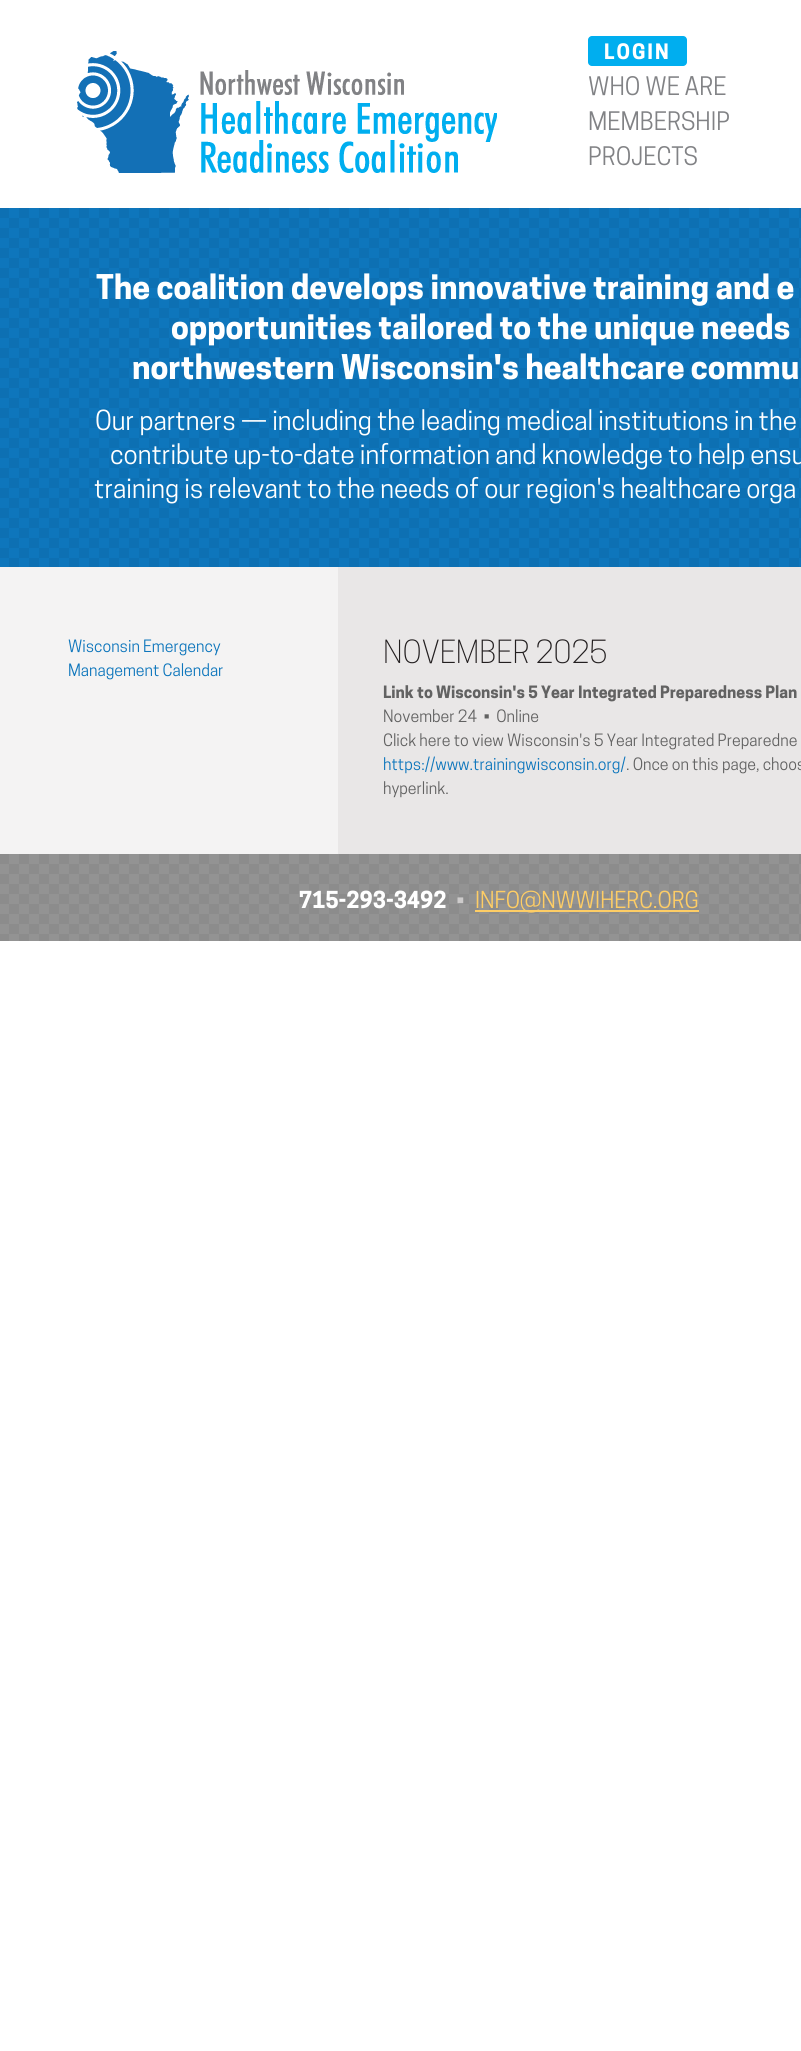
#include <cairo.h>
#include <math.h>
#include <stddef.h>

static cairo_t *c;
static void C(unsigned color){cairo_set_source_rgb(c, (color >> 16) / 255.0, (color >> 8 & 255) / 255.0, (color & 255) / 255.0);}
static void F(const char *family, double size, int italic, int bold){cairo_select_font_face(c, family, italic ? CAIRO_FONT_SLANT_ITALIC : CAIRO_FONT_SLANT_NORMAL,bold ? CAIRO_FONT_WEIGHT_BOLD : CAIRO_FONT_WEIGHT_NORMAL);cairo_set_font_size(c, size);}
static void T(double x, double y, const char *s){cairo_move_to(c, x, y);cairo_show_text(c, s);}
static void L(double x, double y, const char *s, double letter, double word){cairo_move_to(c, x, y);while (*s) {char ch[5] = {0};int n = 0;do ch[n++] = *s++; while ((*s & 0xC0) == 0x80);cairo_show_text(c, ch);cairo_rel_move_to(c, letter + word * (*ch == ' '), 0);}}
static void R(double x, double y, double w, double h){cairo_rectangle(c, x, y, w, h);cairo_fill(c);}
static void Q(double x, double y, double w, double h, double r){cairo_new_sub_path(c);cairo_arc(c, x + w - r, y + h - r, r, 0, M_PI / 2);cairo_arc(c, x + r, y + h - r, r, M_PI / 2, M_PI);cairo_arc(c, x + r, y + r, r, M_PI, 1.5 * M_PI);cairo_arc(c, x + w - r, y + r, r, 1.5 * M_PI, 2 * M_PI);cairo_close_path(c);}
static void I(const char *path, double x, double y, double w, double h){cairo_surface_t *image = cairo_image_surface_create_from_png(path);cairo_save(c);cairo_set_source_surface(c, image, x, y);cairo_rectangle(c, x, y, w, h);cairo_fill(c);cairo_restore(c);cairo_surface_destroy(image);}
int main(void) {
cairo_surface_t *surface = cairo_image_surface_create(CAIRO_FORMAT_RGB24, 801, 2051);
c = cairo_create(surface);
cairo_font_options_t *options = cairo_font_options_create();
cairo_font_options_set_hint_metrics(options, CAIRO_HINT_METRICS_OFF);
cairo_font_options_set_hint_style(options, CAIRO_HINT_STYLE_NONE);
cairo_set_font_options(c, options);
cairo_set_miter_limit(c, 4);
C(0xffffff);
cairo_paint(c);
I("1.png",77,51,420,122);
C(0x00aeef);
Q(588,36,99,30,4);
cairo_fill(c);
F("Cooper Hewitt",20,0,1);
C(0xffffff);
L(604,59,"LOGIN",2,0);
F("Cooper Hewitt",24,0,0);
C(0x818285);
T(588,95,"WHO WE ARE");
T(588,130,"MEMBERSHIP");
T(588,165,"PROJECTS");
C(0x0e76bc);
R(0,208,801,359);
I("2.png",0,208,801,359);
F("Cooper Hewitt",32,0,1);
C(0xffffff);
T(96,299,"The coalition develops innovative training and e");
T(171,339,"opportunities tailored to the unique needs");
T(132,379,"northwestern Wisconsin's healthcare commu");
F("Cooper Hewitt",26,0,0);
T(95,430,"Our partners — including the leading medical institutions in the");
T(110,464,"contribute up-to-date information and knowledge to help ensu");
T(94,498,"training is relevant to the needs of our region's healthcare orga");
C(0xf4f3f3);
R(0,567,338,287);
F("Cooper Hewitt",16,0,0);
C(0x0e76bc);
T(68,652,"Wisconsin Emergency");
T(68,676,"Management Calendar");
C(0xe9e7e7);
R(338,567,463,287);
F("Cooper Hewitt Light",30,0,0);
C(0x231f20);
T(383,663,"NOVEMBER 2025");
F("Cooper Hewitt",16,0,1);
C(0x626262);
T(383,698,"Link to Wisconsin's 5 Year Integrated Preparedness Plan");
F("Cooper Hewitt",16,0,0);
T(383,722,"November 24  •  Online");
T(383,746,"Click here to view Wisconsin's 5 Year Integrated Preparedne");
C(0x0e76bc);
T(383,770,"https://www.trainingwisconsin.org/");
C(0x626262);
T(626,770,". Once on this page, choos");
T(383,794,"hyperlink.");
C(0x939393);
R(0,854,801,87);
I("3.png",0,854,801,87);
F("Cooper Hewitt",22,0,1);
C(0xffffff);
T(299,908,"715-293-3492");
F("Cooper Hewitt",22,0,0);
C(0xcdcbcb);
T(456,908,"•");
C(0xfecd65);
R(475,910,224,2);
T(475,908,"INFO@NWWIHERC.ORG");
cairo_surface_write_to_png(surface, "o.png");
cairo_font_options_destroy(options);
cairo_destroy(c);
cairo_surface_destroy(surface);
return 0;
}
